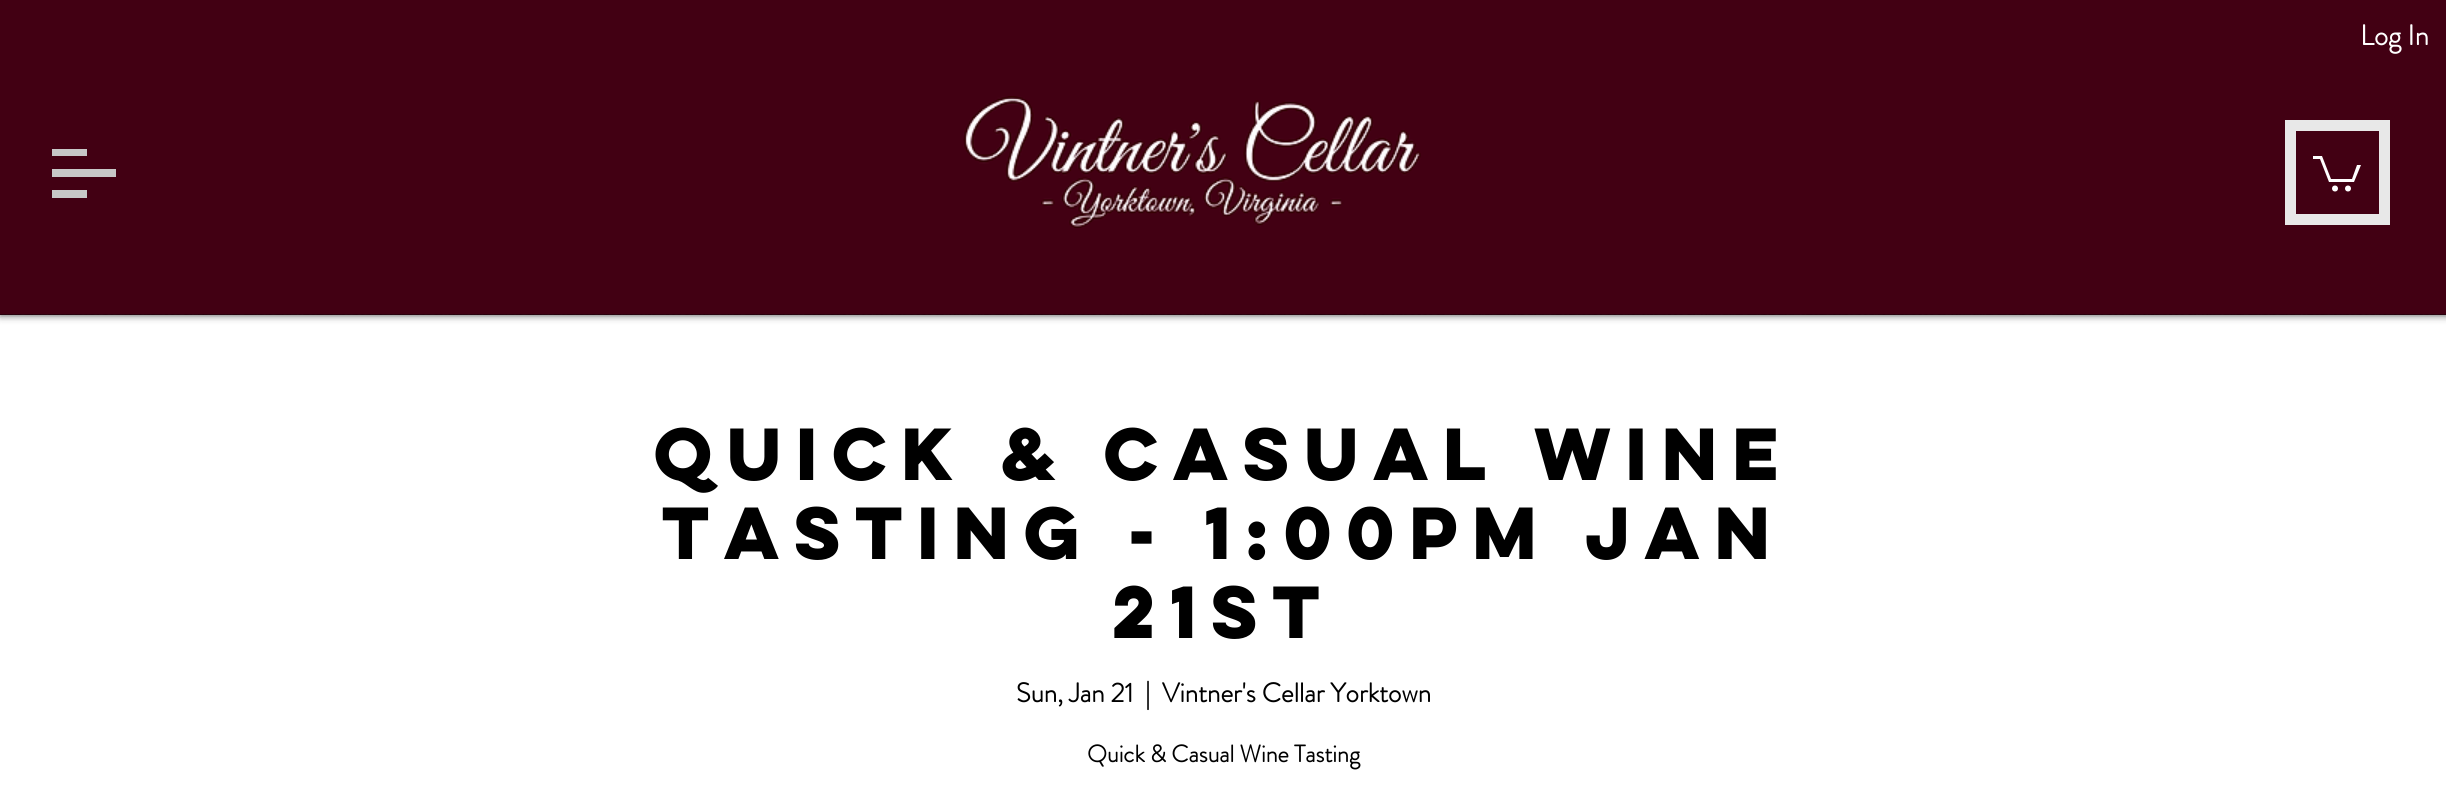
#include <cairo.h>
#include <math.h>
#include <stddef.h>

static cairo_t *c;
static void C(unsigned color){cairo_set_source_rgb(c, (color >> 16) / 255.0, (color >> 8 & 255) / 255.0, (color & 255) / 255.0);}
static void F(const char *family, double size, int italic, int bold){cairo_select_font_face(c, family, italic ? CAIRO_FONT_SLANT_ITALIC : CAIRO_FONT_SLANT_NORMAL,bold ? CAIRO_FONT_WEIGHT_BOLD : CAIRO_FONT_WEIGHT_NORMAL);cairo_set_font_size(c, size);}
static void T(double x, double y, const char *s){cairo_move_to(c, x, y);cairo_show_text(c, s);}
static void R(double x, double y, double w, double h){cairo_rectangle(c, x, y, w, h);cairo_fill(c);}
static void Q(double x, double y, double w, double h, double r){cairo_new_sub_path(c);cairo_arc(c, x + w - r, y + h - r, r, 0, M_PI / 2);cairo_arc(c, x + r, y + h - r, r, M_PI / 2, M_PI);cairo_arc(c, x + r, y + r, r, M_PI, 1.5 * M_PI);cairo_arc(c, x + w - r, y + r, r, 1.5 * M_PI, 2 * M_PI);cairo_close_path(c);}
static void S(double x, double y, double w, double h, double r, double blur, double alpha){cairo_push_group_with_content(c, CAIRO_CONTENT_ALPHA);cairo_set_operator(c, CAIRO_OPERATOR_SOURCE);for (int i = 15; i >= -15 && fmin(w, h) + blur * i / 3 > 0; i -= 2) {double e = blur * i / 6;cairo_set_source_rgba(c, 0, 0, 0, alpha * erfc((i - 1) / 8.5) / 2);Q(x - e, y - e, w + 2 * e, h + 2 * e, fmax(0, fmin(r + e + blur * .6, fmin(w, h) / 2 + e)));cairo_fill(c);}cairo_pattern_t *soft = cairo_pop_group(c);cairo_mask(c, soft);cairo_pattern_destroy(soft);}
static void I(const char *path, double x, double y, double w, double h){cairo_surface_t *image = cairo_image_surface_create_from_png(path);cairo_save(c);cairo_set_source_surface(c, image, x, y);cairo_rectangle(c, x, y, w, h);cairo_fill(c);cairo_restore(c);cairo_surface_destroy(image);}
int main(void) {
cairo_surface_t *surface = cairo_image_surface_create(CAIRO_FORMAT_RGB24, 2446, 790);
c = cairo_create(surface);
cairo_font_options_t *options = cairo_font_options_create();
cairo_font_options_set_hint_metrics(options, CAIRO_HINT_METRICS_OFF);
cairo_font_options_set_hint_style(options, CAIRO_HINT_STYLE_NONE);
cairo_set_font_options(c, options);
cairo_set_miter_limit(c, 4);
C(0x420013);
cairo_paint(c);
C(0xffffff);
R(0,315,2446,475);
C(0x000000);
S(0,0,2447,315,0,4,.7);
I("1.png",0,314,2446,1);
C(0x420013);
R(0,0,2446,314);
F("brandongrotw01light",28.5,0,1);
C(0xffffff);
T(2360,45,"Log In");
I("2.png",963,96,458,132);
C(0xc7c7c7);
cairo_new_path(c);
cairo_move_to(c,87,156);
cairo_line_to(c,52,156);
cairo_line_to(c,52,149);
cairo_line_to(c,87,149);
cairo_close_path(c);
cairo_move_to(c,52,169);
cairo_line_to(c,52,177);
cairo_line_to(c,116,177);
cairo_line_to(c,116,169);
cairo_close_path(c);
cairo_move_to(c,52,198);
cairo_line_to(c,87,198);
cairo_line_to(c,87,190);
cairo_line_to(c,52,190);
cairo_close_path(c);
cairo_fill(c);
cairo_rectangle(c,2290.5,125.5,94,94);
C(0xe8e8e8);
cairo_set_line_width(c,11);
cairo_stroke(c);
C(0xffffff);
cairo_new_path(c);
cairo_move_to(c,2361,165);
cairo_line_to(c,2354,182);
cairo_line_to(c,2329,182);
cairo_line_to(c,2320,159);
cairo_line_to(c,2313,159);
cairo_line_to(c,2313,156);
cairo_line_to(c,2322,156);
cairo_line_to(c,2331,179);
cairo_line_to(c,2352,179);
cairo_line_to(c,2357,165);
cairo_fill(c);
cairo_arc(c,2348,188.5,3,0,2 * M_PI);
cairo_fill(c);
cairo_arc(c,2335,188.5,3,0,2 * M_PI);
cairo_fill(c);
F("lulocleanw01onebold",66,0,1);
C(0x000000);
T(654,480,"Quick & Casual Wine");
T(662,559,"Tasting - 1:00pm Jan");
T(1112,638,"21st");
F("brandongrotw01light",27,0,1);
T(1016,702,"Sun, Jan 21");
T(1145,702,"|");
T(1162,702,"Vintner's Cellar Yorktown");
F("brandongrotw01light",24,0,1);
T(1087,762,"Quick & Casual Wine Tasting");
cairo_surface_write_to_png(surface, "o.png");
cairo_font_options_destroy(options);
cairo_destroy(c);
cairo_surface_destroy(surface);
return 0;
}
